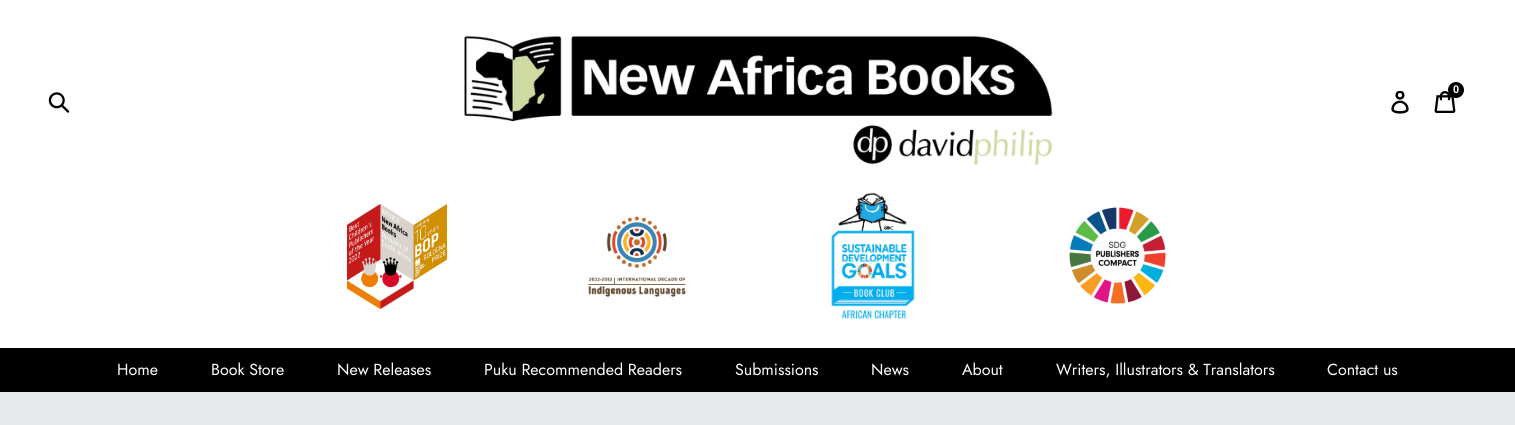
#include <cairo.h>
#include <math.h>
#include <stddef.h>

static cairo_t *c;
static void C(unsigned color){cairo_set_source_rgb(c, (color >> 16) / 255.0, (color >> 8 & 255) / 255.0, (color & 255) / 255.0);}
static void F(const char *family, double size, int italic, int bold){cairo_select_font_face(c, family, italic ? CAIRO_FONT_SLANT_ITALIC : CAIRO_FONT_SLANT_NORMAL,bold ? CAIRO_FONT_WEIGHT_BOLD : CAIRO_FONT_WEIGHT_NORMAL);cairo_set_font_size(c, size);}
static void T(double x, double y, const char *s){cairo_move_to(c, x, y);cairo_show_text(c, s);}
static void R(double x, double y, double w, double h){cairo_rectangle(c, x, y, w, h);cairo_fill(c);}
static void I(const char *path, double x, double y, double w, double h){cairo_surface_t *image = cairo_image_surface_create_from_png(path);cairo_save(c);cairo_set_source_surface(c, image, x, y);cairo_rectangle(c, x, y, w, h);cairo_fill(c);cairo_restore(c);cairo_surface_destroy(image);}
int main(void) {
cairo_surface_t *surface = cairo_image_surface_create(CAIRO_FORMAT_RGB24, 1515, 425);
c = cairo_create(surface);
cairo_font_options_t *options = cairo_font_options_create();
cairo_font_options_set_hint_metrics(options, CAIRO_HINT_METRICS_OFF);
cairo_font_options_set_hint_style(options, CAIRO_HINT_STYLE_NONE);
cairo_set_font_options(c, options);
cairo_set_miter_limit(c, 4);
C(0xe8e9eb);
cairo_paint(c);
C(0xffffff);
R(0,0,1515,348);
I("1.png",464,35,589,131);
I("2.png",1434,91,22,22);
C(0x000000);
cairo_arc(c,1456,90,8,0,2 * M_PI);
cairo_fill(c);
F("Liberation Sans",11,0,1);
C(0xffffff);
T(1453,93,"0");
I("3.png",1391,91,18,23);
I("4.png",48,92,22,21);
I("5.png",347,204,100,105);
I("6.png",588,216,98,81);
I("7.png",831,192,84,128);
I("8.png",1069,207,97,97);
C(0x000000);
R(0,348,1515,44);
F("Jost",16,0,0);
C(0xffffff);
T(117,375,"Home");
T(211,375,"Book Store");
T(337,375,"New Releases");
T(484,375,"Puku Recommended Readers");
T(735,375,"Submissions");
T(871,375,"News");
T(962,375,"About");
T(1056,375,"Writers, Illustrators & Translators");
T(1327,375,"Contact us");
cairo_surface_write_to_png(surface, "o.png");
cairo_font_options_destroy(options);
cairo_destroy(c);
cairo_surface_destroy(surface);
return 0;
}
